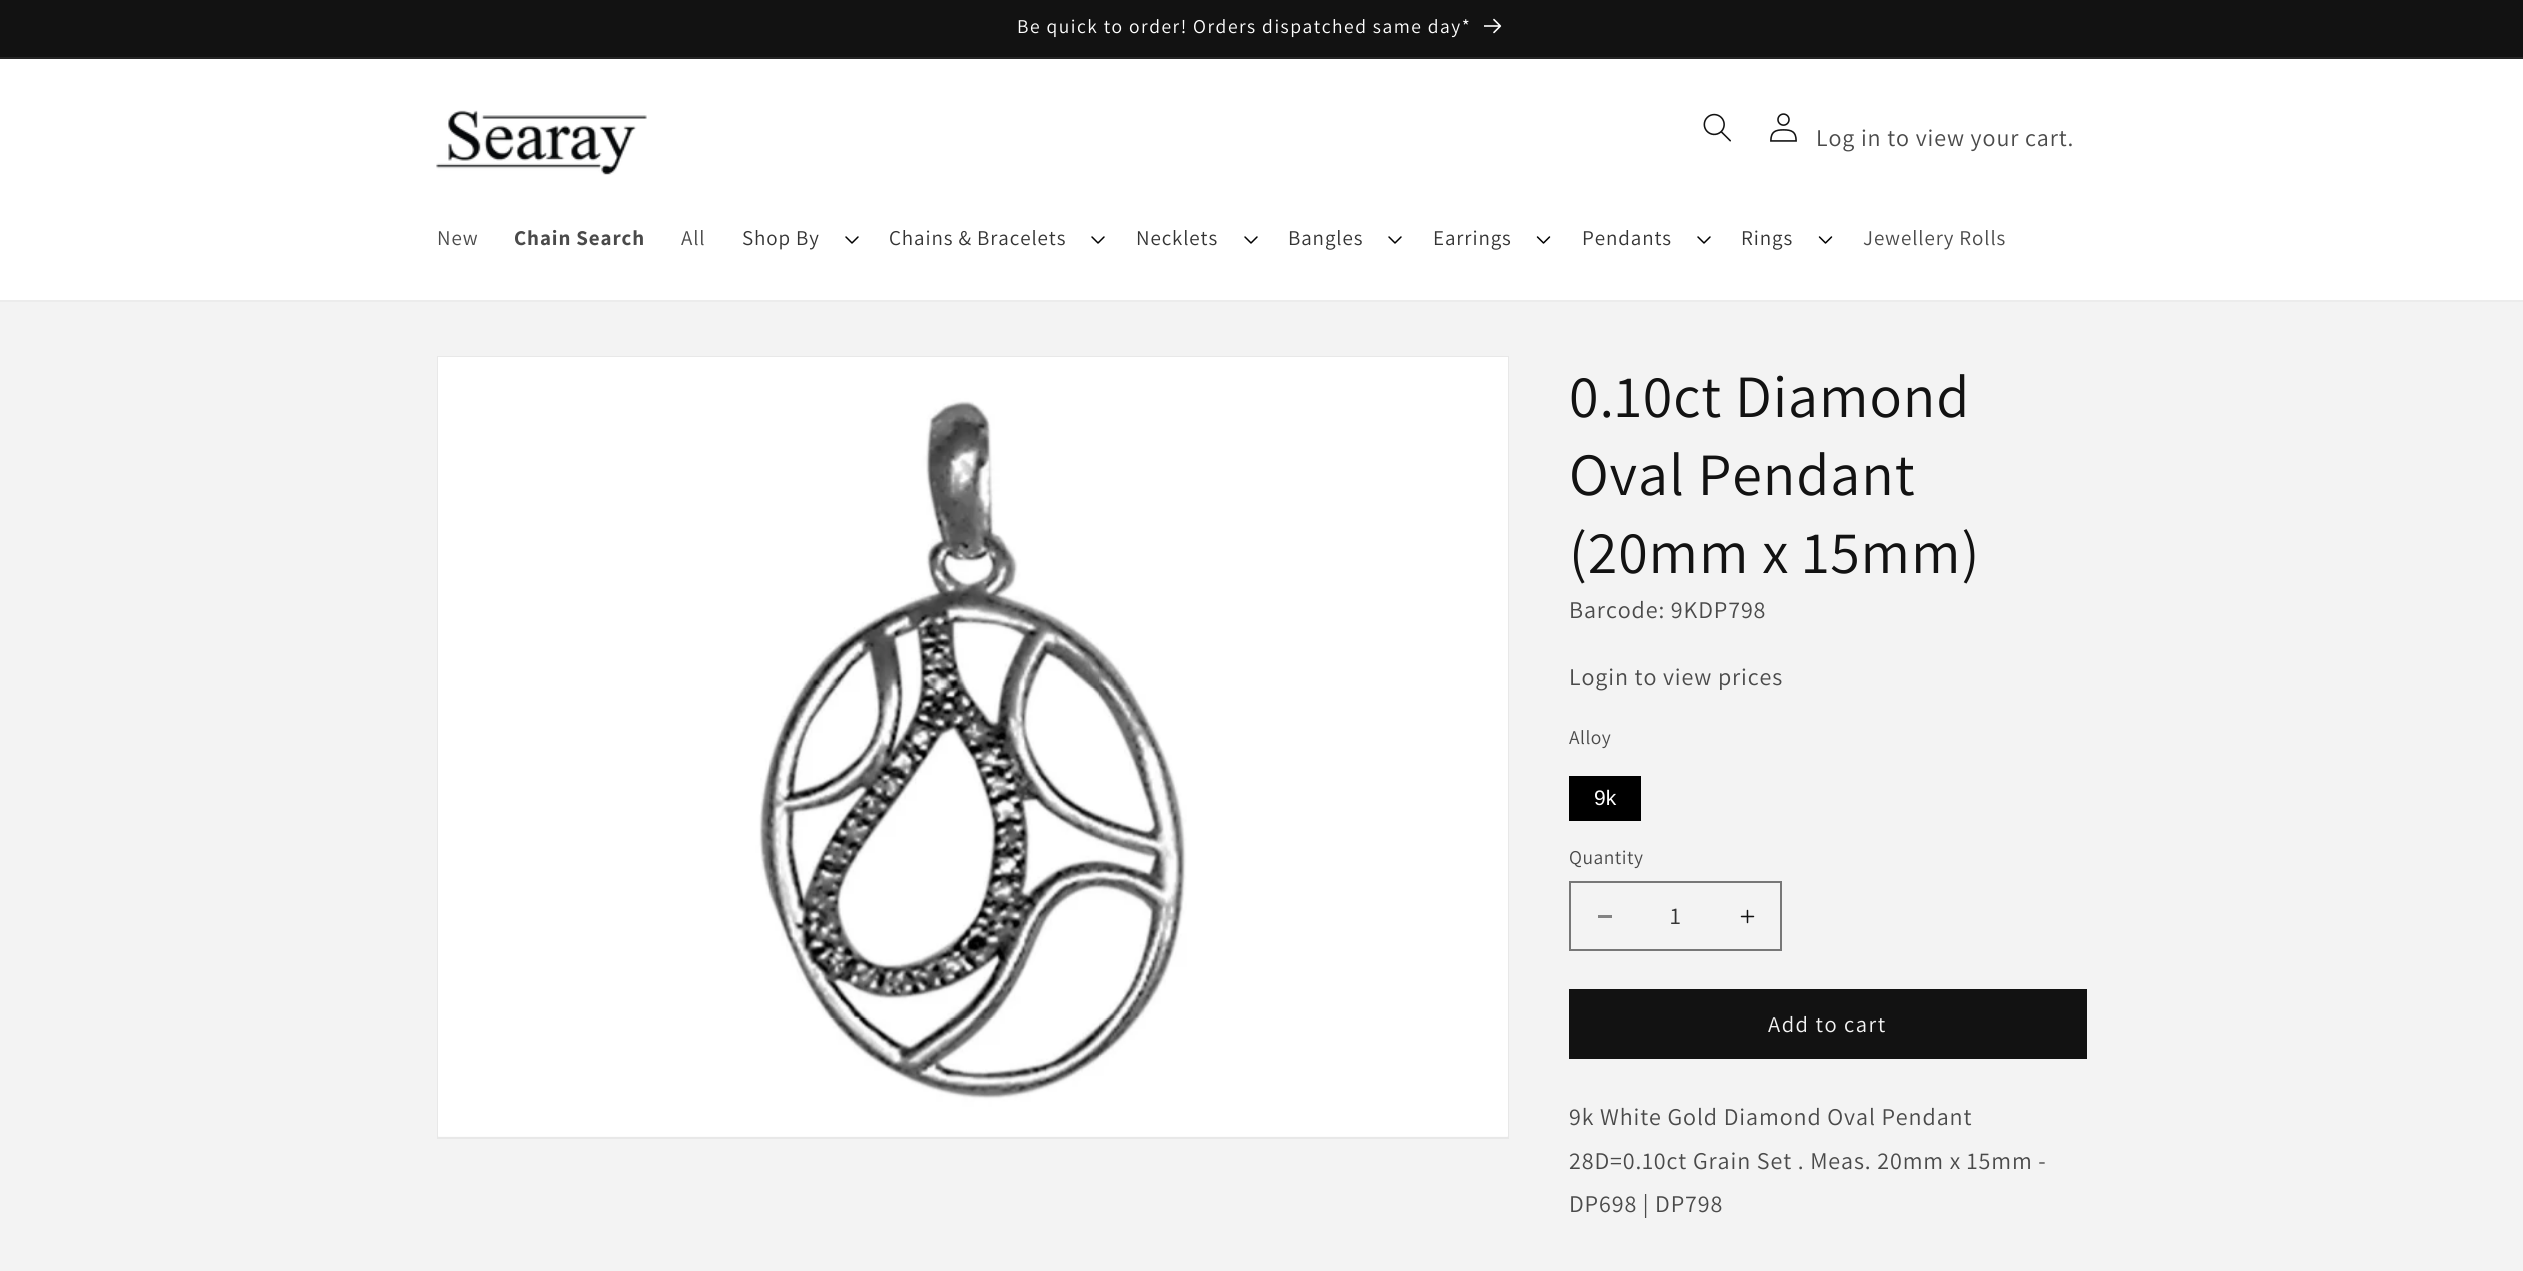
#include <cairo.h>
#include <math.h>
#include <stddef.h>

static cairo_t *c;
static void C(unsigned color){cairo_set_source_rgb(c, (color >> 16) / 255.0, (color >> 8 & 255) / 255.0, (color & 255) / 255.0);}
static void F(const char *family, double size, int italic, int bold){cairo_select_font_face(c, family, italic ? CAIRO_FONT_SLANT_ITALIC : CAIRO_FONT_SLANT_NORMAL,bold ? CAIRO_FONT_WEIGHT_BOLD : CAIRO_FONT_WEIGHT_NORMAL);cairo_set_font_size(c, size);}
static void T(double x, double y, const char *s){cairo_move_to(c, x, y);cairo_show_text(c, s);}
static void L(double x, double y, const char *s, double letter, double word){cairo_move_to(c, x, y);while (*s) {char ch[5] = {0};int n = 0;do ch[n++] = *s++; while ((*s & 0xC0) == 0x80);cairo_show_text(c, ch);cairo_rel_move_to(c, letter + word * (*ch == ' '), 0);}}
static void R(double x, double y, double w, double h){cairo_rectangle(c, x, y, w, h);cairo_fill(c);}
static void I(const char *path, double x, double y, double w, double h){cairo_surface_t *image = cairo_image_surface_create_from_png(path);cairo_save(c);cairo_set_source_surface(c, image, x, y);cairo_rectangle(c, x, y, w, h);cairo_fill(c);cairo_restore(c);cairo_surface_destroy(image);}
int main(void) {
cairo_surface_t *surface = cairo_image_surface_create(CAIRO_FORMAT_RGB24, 2523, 1271);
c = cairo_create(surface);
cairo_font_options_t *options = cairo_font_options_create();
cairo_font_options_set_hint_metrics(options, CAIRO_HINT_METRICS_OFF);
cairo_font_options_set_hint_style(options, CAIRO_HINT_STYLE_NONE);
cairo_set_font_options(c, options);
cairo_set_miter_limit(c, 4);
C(0xffffff);
cairo_paint(c);
C(0x121212);
R(0,0,2523,57);
C(0x252525);
R(0,57,2523,2);
F("Assistant",19.5,0,0);
C(0xffffff);
L(1017,33,"Be quick to order! Orders dispatched same day*",1.5,0);
I("1.png",1484,18,18,16);
C(0xececec);
R(0,300,2523,2);
I("2.png",436,110,211,65);
I("3.png",1703,113,28,29);
I("4.png",1770,113,27,29);
F("Assistant",24,0,0);
C(0x4a4a4a);
L(1816,146,"Log in to view your cart.",.9,0);
F("Assistant",21,0,0);
L(437,245,"New",.9,0);
F("Assistant",21,0,1);
L(514,245,"Chain Search",.9,0);
F("Assistant",21,0,0);
L(681,245,"All",.9,0);
C(0x343434);
L(742,245,"Shop By",.9,0);
I("5.png",845,236,14,8);
L(889,245,"Chains & Bracelets",.9,0);
I("5.png",1091,236,14,8);
L(1136,245,"Necklets",.9,0);
I("5.png",1244,236,14,8);
L(1288,245,"Bangles",.9,0);
I("5.png",1388,236,14,8);
L(1433,245,"Earrings",.9,0);
I("6.png",1536,236,15,8);
L(1582,245,"Pendants",.9,0);
I("5.png",1697,236,14,8);
L(1741,245,"Rings",.9,0);
I("6.png",1818,236,15,8);
C(0x4a4a4a);
L(1863,245,"Jewellery Rolls",.9,0);
C(0xf3f3f3);
R(0,302,2523,969);
cairo_rectangle(c,438,357,1070,781);
C(0xe8e8e8);
cairo_stroke(c);
I("7.png",438,357,1070,780);
F("Assistant",60,0,0);
C(0x121212);
L(1569,417,"0.10ct Diamond",.9,0);
L(1569,495,"Oval Pendant",.9,0);
L(1569,573,"(20mm x 15mm)",.9,0);
F("Assistant",24,0,0);
C(0x4a4a4a);
L(1569,618,"Barcode: 9KDP798",.9,0);
L(1569,685,"Login to view prices",.9,0);
F("Assistant",19.5,0,0);
L(1569,744,"Alloy",.5,0);
C(0x000000);
R(1569,776,72,45);
F("Liberation Sans",21,0,0);
C(0xffffff);
T(1594,805,"9k");
F("Assistant",19.5,0,0);
C(0x4a4a4a);
L(1569,864,"Quantity",.5,0);
C(0x838383);
R(1598,915,14,3);
I("8.png",1740,909,15,15);
cairo_rectangle(c,1570,882,211,68);
C(0x777777);
cairo_stroke(c);
F("Assistant",24,0,0);
C(0x343434);
T(1670,924,"1");
C(0x121212);
R(1569,989,518,70);
F("Assistant",22.5,0,0);
C(0xf3f3f3);
L(1768,1032,"Add to cart",1.5,0);
F("Assistant",24,0,0);
C(0x4a4a4a);
L(1569,1125,"9k White Gold Diamond Oval Pendant",.9,0);
L(1569,1169,"28D=0.10ct Grain Set . Meas. 20mm x 15mm -",.9,0);
L(1569,1212,"DP698 | DP798",.9,0);
cairo_surface_write_to_png(surface, "o.png");
cairo_font_options_destroy(options);
cairo_destroy(c);
cairo_surface_destroy(surface);
return 0;
}
